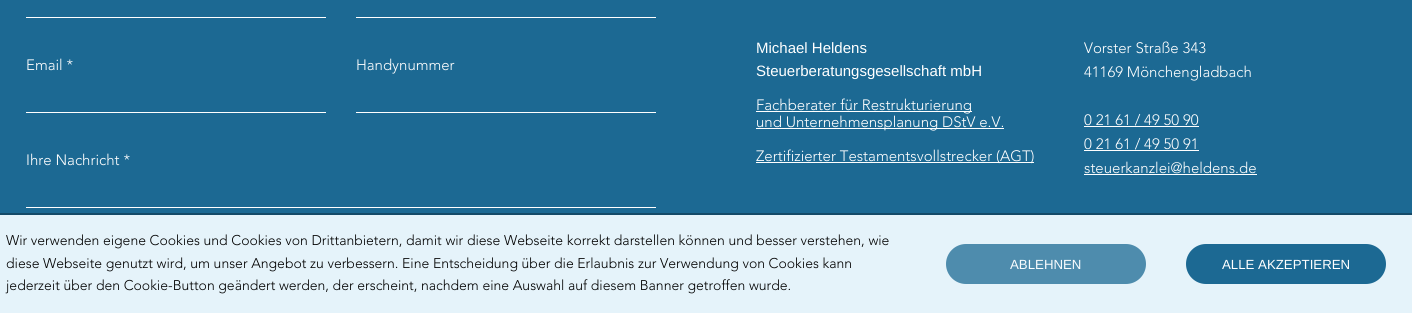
#include <cairo.h>
#include <math.h>
#include <stddef.h>

static cairo_t *c;
static void C(unsigned color){cairo_set_source_rgb(c, (color >> 16) / 255.0, (color >> 8 & 255) / 255.0, (color & 255) / 255.0);}
static void F(const char *family, double size, int italic, int bold){cairo_select_font_face(c, family, italic ? CAIRO_FONT_SLANT_ITALIC : CAIRO_FONT_SLANT_NORMAL,bold ? CAIRO_FONT_WEIGHT_BOLD : CAIRO_FONT_WEIGHT_NORMAL);cairo_set_font_size(c, size);}
static void T(double x, double y, const char *s){cairo_move_to(c, x, y);cairo_show_text(c, s);}
static void R(double x, double y, double w, double h){cairo_rectangle(c, x, y, w, h);cairo_fill(c);}
static void Q(double x, double y, double w, double h, double r){cairo_new_sub_path(c);cairo_arc(c, x + w - r, y + h - r, r, 0, M_PI / 2);cairo_arc(c, x + r, y + h - r, r, M_PI / 2, M_PI);cairo_arc(c, x + r, y + r, r, M_PI, 1.5 * M_PI);cairo_arc(c, x + w - r, y + r, r, 1.5 * M_PI, 2 * M_PI);cairo_close_path(c);}
int main(void) {
cairo_surface_t *surface = cairo_image_surface_create(CAIRO_FORMAT_RGB24, 1412, 313);
c = cairo_create(surface);
cairo_font_options_t *options = cairo_font_options_create();
cairo_font_options_set_hint_metrics(options, CAIRO_HINT_METRICS_OFF);
cairo_font_options_set_hint_style(options, CAIRO_HINT_STYLE_NONE);
cairo_set_font_options(c, options);
cairo_set_miter_limit(c, 4);
C(0x1c6993);
cairo_paint(c);
C(0xffffff);
R(26,17,300,1);
R(356,17,300,1);
F("Avenir Light",15,0,0);
T(26,70,"Email *");
R(26,112,300,1);
T(356,70,"Handynummer");
R(356,112,300,1);
T(26,165,"Ihre Nachricht *");
R(26,207,630,1);
F("Liberation Sans",15,0,0);
T(756,53,"Michael Heldens");
T(756,76,"Steuerberatungsgesellschaft mbH");
R(756,111,216,1);
F("Avenir Light",15,0,0);
T(756,110,"Fachberater für Restrukturierung");
R(756,128,248,1);
T(756,127,"und Unternehmensplanung DStV e.V.");
R(756,162,278,1);
T(756,161,"Zertifizierter Testamentsvollstrecker (AGT)");
T(1084,53,"Vorster Straße 343");
T(1084,77,"41169 Mönchengladbach");
T(1084,125,"0 21 61 / 49 50 90");
R(1084,126,115,1);
T(1084,149,"0 21 61 / 49 50 91");
R(1084,150,115,1);
T(1084,173,"steuerkanzlei@heldens.de");
R(1084,174,173,1);
C(0xe5f3fa);
R(0,215,1412,98);
C(0x144a68);
R(0,213,1412,2);
F("Avenir Light",14,0,0);
C(0x000000);
T(6,245,"Wir verwenden eigene Cookies und Cookies von Drittanbietern, damit wir diese Webseite korrekt darstellen können und besser verstehen, wie");
T(6,268,"diese Webseite genutzt wird, um unser Angebot zu verbessern. Eine Entscheidung über die Erlaubnis zur Verwendung von Cookies kann");
T(6,290,"jederzeit über den Cookie-Button geändert werden, der erscheint, nachdem eine Auswahl auf diesem Banner getroffen wurde.");
C(0x4e8cad);
Q(946,244,200,40,20);
cairo_fill(c);
F("Liberation Sans",13.25,0,0);
C(0xf9fcfe);
T(1010,269,"ABLEHNEN");
C(0x1c6993);
Q(1186,244,200,40,20);
cairo_fill(c);
C(0xffffff);
T(1222,269,"ALLE AKZEPTIEREN");
cairo_surface_write_to_png(surface, "o.png");
cairo_font_options_destroy(options);
cairo_destroy(c);
cairo_surface_destroy(surface);
return 0;
}
